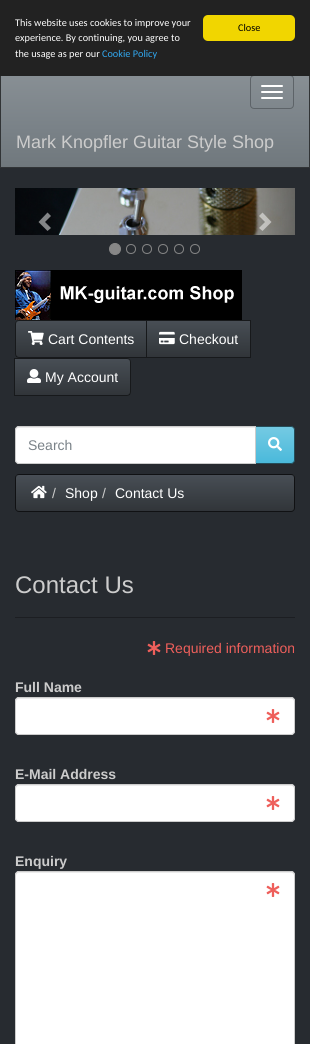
#include <cairo.h>
#include <math.h>
#include <stddef.h>

static cairo_t *c;
static void C(unsigned color){cairo_set_source_rgb(c, (color >> 16) / 255.0, (color >> 8 & 255) / 255.0, (color & 255) / 255.0);}
static void F(const char *family, double size, int italic, int bold){cairo_select_font_face(c, family, italic ? CAIRO_FONT_SLANT_ITALIC : CAIRO_FONT_SLANT_NORMAL,bold ? CAIRO_FONT_WEIGHT_BOLD : CAIRO_FONT_WEIGHT_NORMAL);cairo_set_font_size(c, size);}
static void T(double x, double y, const char *s){cairo_move_to(c, x, y);cairo_show_text(c, s);}
static void R(double x, double y, double w, double h){cairo_rectangle(c, x, y, w, h);cairo_fill(c);}
static void Q(double x, double y, double w, double h, double r){cairo_new_sub_path(c);cairo_arc(c, x + w - r, y + h - r, r, 0, M_PI / 2);cairo_arc(c, x + r, y + h - r, r, M_PI / 2, M_PI);cairo_arc(c, x + r, y + r, r, M_PI, 1.5 * M_PI);cairo_arc(c, x + w - r, y + r, r, 1.5 * M_PI, 2 * M_PI);cairo_close_path(c);}
static void I(const char *path, double x, double y, double w, double h){cairo_surface_t *image = cairo_image_surface_create_from_png(path);cairo_save(c);cairo_set_source_surface(c, image, x, y);cairo_rectangle(c, x, y, w, h);cairo_fill(c);cairo_restore(c);cairo_surface_destroy(image);}
int main(void) {
cairo_surface_t *surface = cairo_image_surface_create(CAIRO_FORMAT_RGB24, 310, 1044);
c = cairo_create(surface);
cairo_font_options_t *options = cairo_font_options_create();
cairo_font_options_set_hint_metrics(options, CAIRO_HINT_METRICS_OFF);
cairo_font_options_set_hint_style(options, CAIRO_HINT_STYLE_NONE);
cairo_set_font_options(c, options);
cairo_set_miter_limit(c, 4);
cairo_pattern_t *gradient;
C(0x272b30);
cairo_paint(c);
gradient = cairo_pattern_create_linear(155,67,155,167);
cairo_pattern_add_color_stop_rgba(gradient,0,0.541,0.569,0.588,1);
cairo_pattern_add_color_stop_rgba(gradient,.6,0.478,0.51,0.533,1);
cairo_pattern_add_color_stop_rgba(gradient,1,0.439,0.471,0.49,1);
cairo_set_source(c,gradient);
cairo_pattern_destroy(gradient);
R(1,76,308,91);
cairo_rectangle(c,.5,66.5,309,101);
C(0x313436);
cairo_set_line_width(c,1);
cairo_stroke(c);
Q(250.5,75.5,43,33,3.5);
C(0x5d6368);
cairo_stroke(c);
C(0x222222);
R(0,0,310,76);
F("Carlito",10.25,0,0);
C(0xffffff);
T(15,26,"This website uses cookies to improve your");
T(15,41,"experience. By continuing, you agree to");
T(15,57,"the usage as per our");
C(0x31a8f0);
T(102,57,"Cookie Policy");
C(0xf1d600);
Q(203,15,92,26,5);
cairo_fill(c);
C(0x000000);
T(238,31,"Close");
C(0xffffff);
Q(261,85,22,2,1);
cairo_fill(c);
Q(261,91,22,2,1);
cairo_fill(c);
Q(261,97,22,2,1);
cairo_fill(c);
F("Liberation Sans",18,0,0);
C(0xcccccc);
T(16,148,"Mark Knopfler Guitar Style Shop");
I("1.png",15,188,280,47);
cairo_set_source_rgba(c,1,1,1,0.5);
cairo_new_path(c);
cairo_move_to(c,51,216);
cairo_line_to(c,45,222);
cairo_line_to(c,51,228);
cairo_line_to(c,47.5,231);
cairo_line_to(c,38.5,222);
cairo_line_to(c,47.5,212.5);
cairo_close_path(c);
cairo_fill(c);
cairo_new_path(c);
cairo_move_to(c,271.5,222);
cairo_line_to(c,262.5,231);
cairo_line_to(c,259,228);
cairo_line_to(c,265,222);
cairo_line_to(c,259,216);
cairo_line_to(c,262.5,212.5);
cairo_close_path(c);
cairo_fill(c);
C(0x878787);
cairo_arc(c,115,249,5.5,0,2 * M_PI);
cairo_fill_preserve(c);
cairo_stroke(c);
cairo_arc(c,131,249,4.5,0,2 * M_PI);
cairo_stroke(c);
cairo_arc(c,147,249,4.5,0,2 * M_PI);
cairo_stroke(c);
cairo_arc(c,163,249,4.5,0,2 * M_PI);
cairo_stroke(c);
cairo_arc(c,179,249,4.5,0,2 * M_PI);
cairo_stroke(c);
cairo_arc(c,195,249,4.5,0,2 * M_PI);
cairo_stroke(c);
I("2.png",15,270,227,50);
C(0x3a3f44);
cairo_new_path(c);
cairo_move_to(c,19,320);
cairo_line_to(c,147,320);
cairo_line_to(c,147,358);
cairo_line_to(c,19,358);
cairo_curve_to(c,17,358,15,356,15,354);
cairo_line_to(c,15,324);
cairo_curve_to(c,15,322,17,320,19,320);
cairo_close_path(c);
cairo_fill(c);
gradient = cairo_pattern_create_linear(81,321,81,357);
cairo_pattern_add_color_stop_rgba(gradient,0,0.282,0.306,0.333,1);
cairo_pattern_add_color_stop_rgba(gradient,.6,0.227,0.247,0.267,1);
cairo_pattern_add_color_stop_rgba(gradient,1,0.192,0.208,0.224,1);
cairo_set_source(c,gradient);
cairo_pattern_destroy(gradient);
R(16,321,130,36);
cairo_new_path(c);
cairo_move_to(c,19,320.5);
cairo_line_to(c,146.5,320.5);
cairo_line_to(c,146.5,357.5);
cairo_line_to(c,19,357.5);
cairo_curve_to(c,17,357.5,15.5,356,15.5,354);
cairo_line_to(c,15.5,324);
cairo_curve_to(c,15.5,322,17,320.5,19,320.5);
cairo_close_path(c);
cairo_set_source_rgba(c,0,0,0,0.6);
cairo_stroke(c);
I("3.png",28,331,16,14);
F("Liberation Sans",14,0,0);
C(0xffffff);
T(48,344,"Cart Contents");
gradient = cairo_pattern_create_linear(199,321,199,357);
cairo_pattern_add_color_stop_rgba(gradient,0,0.282,0.306,0.333,1);
cairo_pattern_add_color_stop_rgba(gradient,.6,0.227,0.247,0.267,1);
cairo_pattern_add_color_stop_rgba(gradient,1,0.192,0.208,0.224,1);
cairo_set_source(c,gradient);
cairo_pattern_destroy(gradient);
R(147,321,103,36);
cairo_rectangle(c,146.5,320.5,104,37);
C(0x17191b);
cairo_stroke(c);
I("4.png",159,331,16,14);
C(0xffffff);
T(179,344,"Checkout");
C(0x3a3f44);
cairo_new_path(c);
cairo_move_to(c,14,358);
cairo_line_to(c,127,358);
cairo_curve_to(c,129,358,131,360,131,362);
cairo_line_to(c,131,392);
cairo_curve_to(c,131,394,129,396,127,396);
cairo_line_to(c,14,396);
cairo_close_path(c);
cairo_fill(c);
gradient = cairo_pattern_create_linear(73,359,73,395);
cairo_pattern_add_color_stop_rgba(gradient,0,0.282,0.306,0.333,1);
cairo_pattern_add_color_stop_rgba(gradient,.6,0.227,0.247,0.267,1);
cairo_pattern_add_color_stop_rgba(gradient,1,0.192,0.208,0.224,1);
cairo_set_source(c,gradient);
cairo_pattern_destroy(gradient);
R(15,359,115,36);
cairo_new_path(c);
cairo_move_to(c,14.5,358.5);
cairo_line_to(c,127,358.5);
cairo_curve_to(c,129,358.5,130.5,360,130.5,362);
cairo_line_to(c,130.5,392);
cairo_curve_to(c,130.5,394,129,395.5,127,395.5);
cairo_line_to(c,14.5,395.5);
cairo_close_path(c);
cairo_set_source_rgba(c,0,0,0,0.6);
cairo_stroke(c);
I("5.png",27,369,14,14);
C(0xffffff);
T(45,382,"My Account");
C(0x5bc0de);
cairo_new_path(c);
cairo_move_to(c,255,426);
cairo_line_to(c,291,426);
cairo_curve_to(c,293,426,295,428,295,430);
cairo_line_to(c,295,460);
cairo_curve_to(c,295,462,293,464,291,464);
cairo_line_to(c,255,464);
cairo_close_path(c);
cairo_fill(c);
gradient = cairo_pattern_create_linear(275,427,275,463);
cairo_pattern_add_color_stop_rgba(gradient,0,0.455,0.792,0.89,1);
cairo_pattern_add_color_stop_rgba(gradient,.6,0.357,0.753,0.871,1);
cairo_pattern_add_color_stop_rgba(gradient,1,0.29,0.725,0.859,1);
cairo_set_source(c,gradient);
cairo_pattern_destroy(gradient);
R(256,427,38,36);
cairo_new_path(c);
cairo_move_to(c,255.5,426.5);
cairo_line_to(c,291,426.5);
cairo_curve_to(c,293,426.5,294.5,428,294.5,430);
cairo_line_to(c,294.5,460);
cairo_curve_to(c,294.5,462,293,463.5,291,463.5);
cairo_line_to(c,255.5,463.5);
cairo_close_path(c);
cairo_set_source_rgba(c,0,0,0,0.6);
cairo_stroke(c);
C(0xffffff);
cairo_new_path(c);
cairo_move_to(c,19,426);
cairo_line_to(c,256,426);
cairo_line_to(c,256,464);
cairo_line_to(c,19,464);
cairo_curve_to(c,17,464,15,462,15,460);
cairo_line_to(c,15,430);
cairo_curve_to(c,15,428,17,426,19,426);
cairo_close_path(c);
cairo_fill(c);
C(0xececec);
cairo_new_path(c);
cairo_move_to(c,19,428);
cairo_line_to(c,255,428);
cairo_line_to(c,255,427);
cairo_line_to(c,19,427);
cairo_curve_to(c,17,427,16,429,16,431);
cairo_curve_to(c,16,429,17,428,19,428);
cairo_close_path(c);
cairo_fill(c);
cairo_new_path(c);
cairo_move_to(c,19,426.5);
cairo_line_to(c,255.5,426.5);
cairo_line_to(c,255.5,463.5);
cairo_line_to(c,19,463.5);
cairo_curve_to(c,17,463.5,15.5,462,15.5,460);
cairo_line_to(c,15.5,430);
cairo_curve_to(c,15.5,428,17,426.5,19,426.5);
cairo_close_path(c);
C(0xcccccc);
cairo_stroke(c);
C(0x7a8288);
T(28,450,"Search");
I("6.png",268,437,14,14);
cairo_save(c);
Q(15,474,280,38,4);
cairo_clip(c);
gradient = cairo_pattern_create_linear(155,475,155,511);
cairo_pattern_add_color_stop_rgba(gradient,0,0.282,0.306,0.333,1);
cairo_pattern_add_color_stop_rgba(gradient,.6,0.227,0.247,0.267,1);
cairo_pattern_add_color_stop_rgba(gradient,1,0.192,0.208,0.224,1);
cairo_set_source(c,gradient);
cairo_pattern_destroy(gradient);
R(16,475,278,36);
cairo_restore(c);
Q(15.5,474.5,279,37,3.5);
cairo_set_source_rgba(c,0,0,0,0.6);
cairo_stroke(c);
I("7.png",31,485,16,14);
C(0xcccccc);
T(52,498,"/");
C(0xffffff);
T(65,498,"Shop");
C(0xcccccc);
T(102,498,"/");
C(0xffffff);
T(115,498,"Contact Us");
C(0x1c1e22);
R(15,617,280,1);
F("Liberation Sans",24,0,0);
C(0xcccccc);
T(15,593,"Contact Us");
I("8.png",147,641,14,14);
F("Liberation Sans",14,0,0);
C(0xee5f5b);
T(165,653,"Required information");
F("Liberation Sans",14,0,1);
C(0xcccccc);
T(15,692,"Full Name");
C(0xffffff);
Q(15,697,280,38,4);
cairo_fill(c);
C(0xececec);
cairo_new_path(c);
cairo_move_to(c,19,699);
cairo_line_to(c,291,699);
cairo_curve_to(c,293,699,294,700,294,702);
cairo_line_to(c,294,701);
cairo_curve_to(c,294,699,293,698,291,698);
cairo_line_to(c,19,698);
cairo_curve_to(c,17,698,16,699,16,701);
cairo_line_to(c,16,702);
cairo_curve_to(c,16,700,17,699,19,699);
cairo_close_path(c);
cairo_fill(c);
Q(15.5,697.5,279,37,3.5);
C(0xcccccc);
cairo_stroke(c);
I("9.png",266,709,14,14);
T(15,779,"E-Mail Address");
C(0xffffff);
Q(15,784,280,38,4);
cairo_fill(c);
C(0xececec);
cairo_new_path(c);
cairo_move_to(c,19,786);
cairo_line_to(c,291,786);
cairo_curve_to(c,293,786,294,787,294,789);
cairo_line_to(c,294,788);
cairo_curve_to(c,294,786,293,785,291,785);
cairo_line_to(c,19,785);
cairo_curve_to(c,17,785,16,786,16,788);
cairo_line_to(c,16,789);
cairo_curve_to(c,16,787,17,786,19,786);
cairo_close_path(c);
cairo_fill(c);
Q(15.5,784.5,279,37,3.5);
C(0xcccccc);
cairo_stroke(c);
I("9.png",266,796,14,14);
T(15,866,"Enquiry");
C(0xffffff);
Q(15,871,280,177,4);
cairo_fill(c);
C(0xececec);
cairo_new_path(c);
cairo_move_to(c,19,873);
cairo_line_to(c,291,873);
cairo_curve_to(c,293,873,294,874,294,876);
cairo_line_to(c,294,875);
cairo_curve_to(c,294,873,293,872,291,872);
cairo_line_to(c,19,872);
cairo_curve_to(c,17,872,16,873,16,875);
cairo_line_to(c,16,876);
cairo_curve_to(c,16,874,17,873,19,873);
cairo_close_path(c);
cairo_fill(c);
Q(15.5,871.5,279,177,3.5);
C(0xcccccc);
cairo_stroke(c);
I("9.png",266,883,14,14);
cairo_surface_write_to_png(surface, "o.png");
cairo_font_options_destroy(options);
cairo_destroy(c);
cairo_surface_destroy(surface);
return 0;
}
